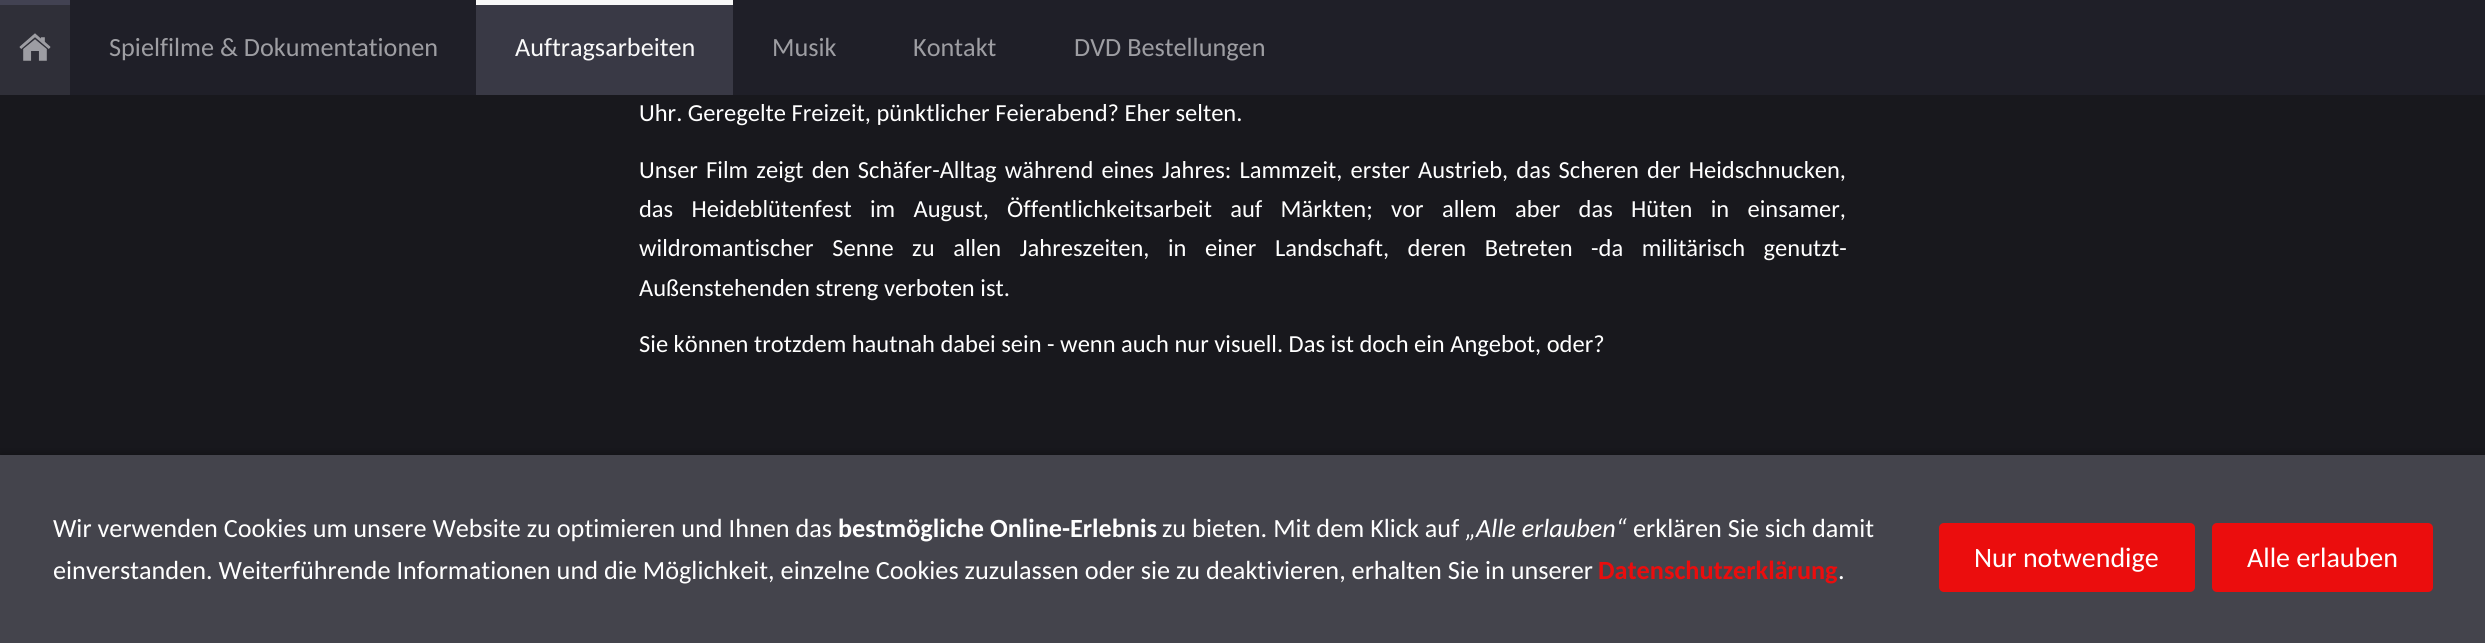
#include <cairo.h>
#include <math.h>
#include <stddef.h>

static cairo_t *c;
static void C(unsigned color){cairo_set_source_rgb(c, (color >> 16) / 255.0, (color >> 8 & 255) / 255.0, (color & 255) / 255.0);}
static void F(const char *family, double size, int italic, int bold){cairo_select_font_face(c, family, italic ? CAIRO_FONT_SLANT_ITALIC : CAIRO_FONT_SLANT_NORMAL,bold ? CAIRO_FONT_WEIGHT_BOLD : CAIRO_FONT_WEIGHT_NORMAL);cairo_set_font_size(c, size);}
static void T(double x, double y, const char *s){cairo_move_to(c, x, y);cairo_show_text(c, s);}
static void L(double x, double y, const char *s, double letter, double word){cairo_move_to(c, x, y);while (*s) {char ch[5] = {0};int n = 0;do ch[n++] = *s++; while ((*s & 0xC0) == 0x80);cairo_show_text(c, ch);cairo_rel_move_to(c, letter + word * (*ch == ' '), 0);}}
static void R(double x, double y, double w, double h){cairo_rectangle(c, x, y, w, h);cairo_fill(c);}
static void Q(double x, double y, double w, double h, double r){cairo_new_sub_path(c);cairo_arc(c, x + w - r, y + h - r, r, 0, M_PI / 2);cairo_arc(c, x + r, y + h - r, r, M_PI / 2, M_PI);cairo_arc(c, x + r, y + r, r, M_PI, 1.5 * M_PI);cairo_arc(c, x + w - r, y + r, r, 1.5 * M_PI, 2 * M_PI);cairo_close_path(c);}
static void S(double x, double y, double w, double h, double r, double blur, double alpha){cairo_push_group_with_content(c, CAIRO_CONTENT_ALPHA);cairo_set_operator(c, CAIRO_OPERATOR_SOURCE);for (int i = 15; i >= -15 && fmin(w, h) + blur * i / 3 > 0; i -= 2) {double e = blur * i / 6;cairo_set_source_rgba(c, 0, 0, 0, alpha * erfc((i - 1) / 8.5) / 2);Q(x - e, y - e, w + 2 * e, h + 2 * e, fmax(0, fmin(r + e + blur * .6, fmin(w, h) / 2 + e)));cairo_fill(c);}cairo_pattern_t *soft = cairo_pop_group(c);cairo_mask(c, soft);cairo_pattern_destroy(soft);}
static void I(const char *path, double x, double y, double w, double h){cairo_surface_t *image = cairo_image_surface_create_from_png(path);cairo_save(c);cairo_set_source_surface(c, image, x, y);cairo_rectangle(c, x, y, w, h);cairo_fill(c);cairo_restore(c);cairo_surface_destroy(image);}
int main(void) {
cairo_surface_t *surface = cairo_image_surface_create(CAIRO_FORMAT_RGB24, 2485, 643);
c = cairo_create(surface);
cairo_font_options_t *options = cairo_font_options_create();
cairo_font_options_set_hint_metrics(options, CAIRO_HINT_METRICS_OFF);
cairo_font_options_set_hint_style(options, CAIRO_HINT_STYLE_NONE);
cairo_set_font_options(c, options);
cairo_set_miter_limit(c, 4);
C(0x18181d);
cairo_paint(c);
C(0x1f1f28);
R(0,0,2485,95);
cairo_set_source_rgba(c,0.188,0.188,0.224,0.97);
R(0,5,70,90);
I("1.png",19,33,32,28);
C(0x424252);
R(0,0,70,5);
F("Carlito",26.25,0,0);
C(0x9e9ea3);
T(109,56,"Spielfilme & Dokumentationen");
cairo_set_source_rgba(c,0.227,0.227,0.275,0.97);
R(476,5,257,90);
C(0xf8f8f8);
R(476,0,257,5);
C(0xf9f9f9);
T(515,56,"Auftragsarbeiten");
C(0x9e9ea3);
T(772,56,"Musik");
T(913,56,"Kontakt");
T(1074,56,"DVD Bestellungen");
F("Carlito",24.5,0,0);
C(0xffffff);
T(639,121,"Uhr. Geregelte Freizeit, pünktlicher Feierabend? Eher selten.");
L(639,178,"Unser Film zeigt den Schäfer-Alltag während eines Jahres: Lammzeit, erster Austrieb, das Scheren der Heidschnucken,",0,2.6);
L(639,217,"das Heideblütenfest im August, Öffentlichkeitsarbeit auf Märkten; vor allem aber das Hüten in einsamer,",0,12.75);
L(639,256,"wildromantischer Senne zu allen Jahreszeiten, in einer Landschaft, deren Betreten -da militärisch genutzt-",0,13);
T(639,296,"Außenstehenden streng verboten ist.");
T(639,352,"Sie können trotzdem hautnah dabei sein - wenn auch nur visuell. Das ist doch ein Angebot, oder?");
C(0x000000);
S(0,455,2485,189,0,4.5,.4);
C(0x44444c);
R(0,455,2485,188);
F("Carlito",26.25,0,0);
C(0xffffff);
T(53,537,"Wir verwenden Cookies um unsere Website zu optimieren und Ihnen das");
F("Carlito",26.25,0,1);
T(838,537,"bestmögliche Online-Erlebnis");
F("Carlito",26.25,0,0);
T(1162,537,"zu bieten. Mit dem Klick auf");
F("Carlito",26.25,1,0);
T(1465,537,"„Alle erlauben“");
F("Carlito",26.25,0,0);
T(1633,537,"erklären Sie sich damit");
T(53,579,"einverstanden. Weiterführende Informationen und die Möglichkeit, einzelne Cookies zuzulassen oder sie zu deaktivieren, erhalten Sie in unserer");
F("Carlito",26.25,0,1);
C(0xeb0d0d);
T(1598,579,"Datenschutzerklärung");
F("Carlito",26.25,0,0);
C(0xffffff);
T(1838,579,".");
C(0xeb0d0d);
Q(1939,523,256,69,5);
cairo_fill(c);
F("Carlito",28,0,0);
C(0xffffff);
T(1974,567,"Nur notwendige");
C(0xeb0d0d);
Q(2212,523,221,69,5);
cairo_fill(c);
C(0xffffff);
T(2247,567,"Alle erlauben");
cairo_surface_write_to_png(surface, "o.png");
cairo_font_options_destroy(options);
cairo_destroy(c);
cairo_surface_destroy(surface);
return 0;
}
